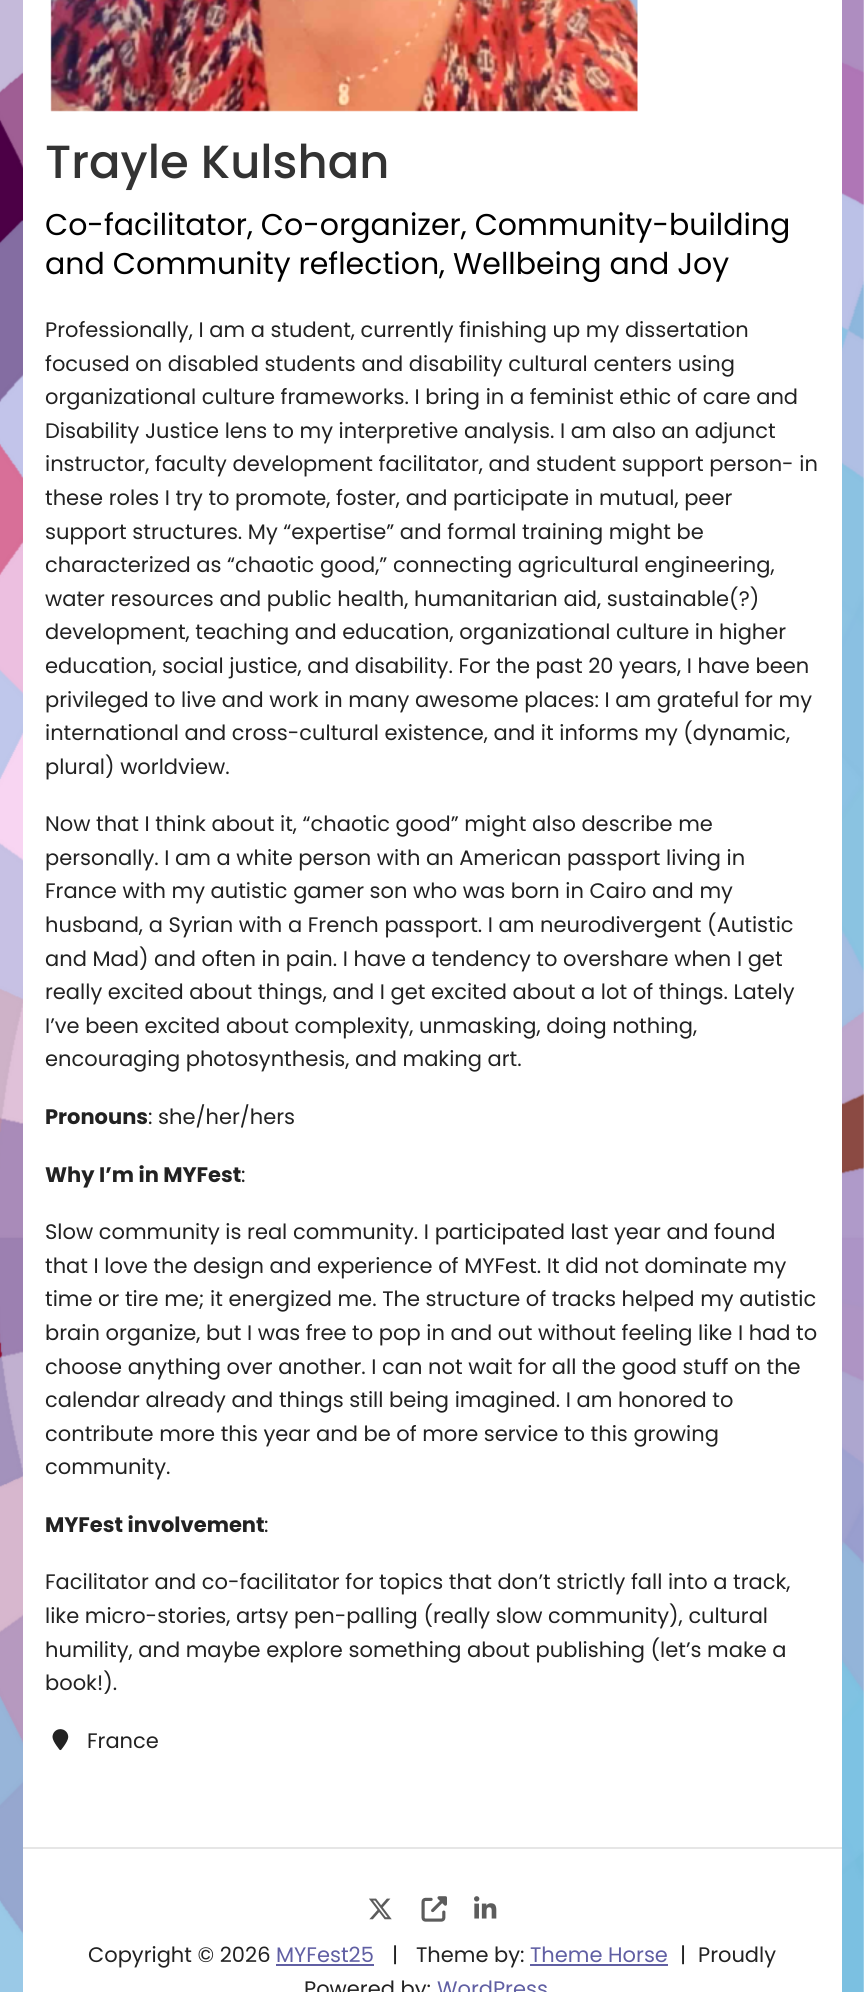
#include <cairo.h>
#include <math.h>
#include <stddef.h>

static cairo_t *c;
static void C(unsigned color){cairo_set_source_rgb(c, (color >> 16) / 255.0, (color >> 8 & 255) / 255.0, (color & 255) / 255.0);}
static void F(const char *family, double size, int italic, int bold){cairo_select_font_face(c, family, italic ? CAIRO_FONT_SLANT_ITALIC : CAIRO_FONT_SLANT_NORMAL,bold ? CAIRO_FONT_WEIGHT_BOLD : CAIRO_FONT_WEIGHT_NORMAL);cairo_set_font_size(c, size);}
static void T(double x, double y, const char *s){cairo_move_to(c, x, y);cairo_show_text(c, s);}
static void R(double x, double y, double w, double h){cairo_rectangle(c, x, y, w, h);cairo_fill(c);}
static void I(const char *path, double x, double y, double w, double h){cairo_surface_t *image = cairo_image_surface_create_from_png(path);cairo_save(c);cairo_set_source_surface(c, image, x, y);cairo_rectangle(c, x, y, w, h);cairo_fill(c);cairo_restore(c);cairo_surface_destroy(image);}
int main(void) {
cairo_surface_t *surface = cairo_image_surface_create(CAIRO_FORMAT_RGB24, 864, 1992);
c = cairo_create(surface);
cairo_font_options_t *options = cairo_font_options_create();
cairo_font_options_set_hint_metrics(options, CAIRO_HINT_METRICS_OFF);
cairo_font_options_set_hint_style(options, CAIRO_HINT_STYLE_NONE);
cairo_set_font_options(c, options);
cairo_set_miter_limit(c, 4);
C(0xffffff);
cairo_paint(c);
I("1.png",0,0,864,1992);
C(0xffffff);
R(23,0,819,1992);
I("2.png",50,0,588,112);
F("Poppins Medium",46.5,0,0);
C(0x333333);
T(45,178,"Trayle Kulshan");
F("Poppins",30,0,0);
C(0x000000);
T(45,235,"Co-facilitator, Co-organizer, Community-building");
T(45,274,"and Community reflection, Wellbeing and Joy");
F("Poppins",21,0,0);
C(0x222222);
T(45,337,"Professionally, I am a student, currently finishing up my dissertation");
T(45,371,"focused on disabled students and disability cultural centers using");
T(45,404,"organizational culture frameworks. I bring in a feminist ethic of care and");
T(45,438,"Disability Justice lens to my interpretive analysis. I am also an adjunct");
T(45,471,"instructor, faculty development facilitator, and student support person- in");
T(45,505,"these roles I try to promote, foster, and participate in mutual, peer");
T(45,539,"support structures. My “expertise” and formal training might be");
T(45,572,"characterized as “chaotic good,” connecting agricultural engineering,");
T(45,606,"water resources and public health, humanitarian aid, sustainable(?)");
T(45,639,"development, teaching and education, organizational culture in higher");
T(45,673,"education, social justice, and disability. For the past 20 years, I have been");
T(45,707,"privileged to live and work in many awesome places: I am grateful for my");
T(45,740,"international and cross-cultural existence, and it informs my (dynamic,");
T(45,774,"plural) worldview.");
T(45,831,"Now that I think about it, “chaotic good” might also describe me");
T(45,865,"personally. I am a white person with an American passport living in");
T(45,898,"France with my autistic gamer son who was born in Cairo and my");
T(45,932,"husband, a Syrian with a French passport. I am neurodivergent (Autistic");
T(45,966,"and Mad) and often in pain. I have a tendency to overshare when I get");
T(45,999,"really excited about things, and I get excited about a lot of things. Lately");
T(45,1033,"I’ve been excited about complexity, unmasking, doing nothing,");
T(45,1066,"encouraging photosynthesis, and making art.");
F("Poppins",21,0,1);
T(45,1124,"Pronouns");
F("Poppins",21,0,0);
T(148,1124,": she/her/hers");
F("Poppins",21,0,1);
T(45,1182,"Why I’m in MYFest");
F("Poppins",21,0,0);
T(241,1182,":");
T(45,1239,"Slow community is real community. I participated last year and found");
T(45,1273,"that I love the design and experience of MYFest. It did not dominate my");
T(45,1306,"time or tire me; it energized me. The structure of tracks helped my autistic");
T(45,1340,"brain organize, but I was free to pop in and out without feeling like I had to");
T(45,1374,"choose anything over another. I can not wait for all the good stuff on the");
T(45,1407,"calendar already and things still being imagined. I am honored to");
T(45,1441,"contribute more this year and be of more service to this growing");
T(45,1474,"community.");
F("Poppins",21,0,1);
T(45,1532,"MYFest involvement");
F("Poppins",21,0,0);
T(264,1532,":");
T(45,1589,"Facilitator and co-facilitator for topics that don’t strictly fall into a track,");
T(45,1623,"like micro-stories, artsy pen-palling (really slow community), cultural");
T(45,1657,"humility, and maybe explore something about publishing (let’s make a");
T(45,1690,"book!).");
I("3.png",52,1729,17,22);
T(87,1748,"France");
C(0xe6e6e6);
R(23,1847,819,2);
I("4.png",369,1898,23,22);
I("5.png",421,1896,26,26);
I("6.png",474,1896,23,23);
C(0x222222);
T(88,1962,"Copyright © 2026");
C(0x605fa3);
T(276,1962,"MYFest25");
R(276,1964,98,2);
C(0x222222);
T(392,1962,"|");
T(416,1962,"Theme by:");
C(0x605fa3);
T(530,1962,"Theme Horse");
R(530,1964,138,2);
C(0x222222);
T(680,1962,"|");
T(698,1962,"Proudly");
T(304,1996,"Powered by:");
C(0x605fa3);
T(437,1996,"WordPress");
cairo_surface_write_to_png(surface, "o.png");
cairo_font_options_destroy(options);
cairo_destroy(c);
cairo_surface_destroy(surface);
return 0;
}
